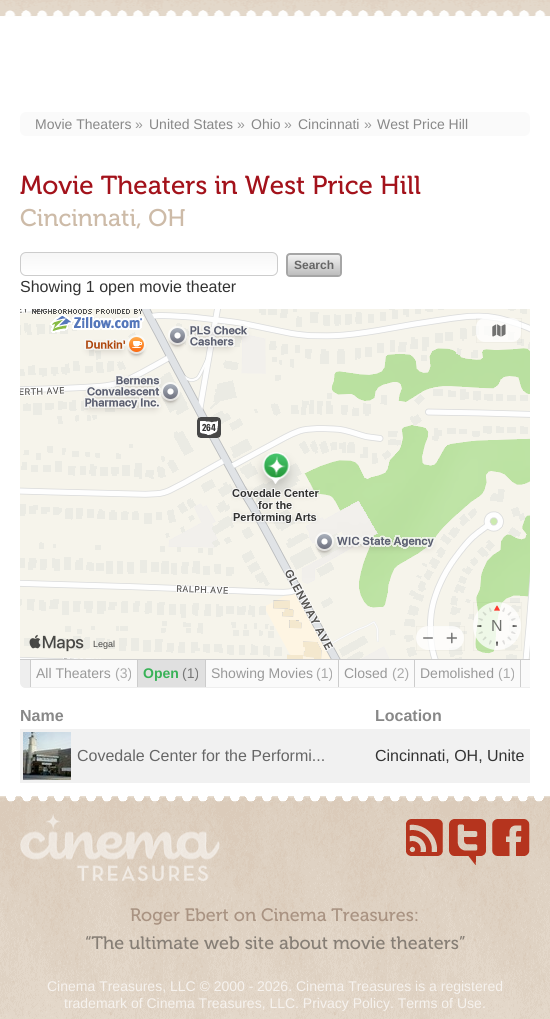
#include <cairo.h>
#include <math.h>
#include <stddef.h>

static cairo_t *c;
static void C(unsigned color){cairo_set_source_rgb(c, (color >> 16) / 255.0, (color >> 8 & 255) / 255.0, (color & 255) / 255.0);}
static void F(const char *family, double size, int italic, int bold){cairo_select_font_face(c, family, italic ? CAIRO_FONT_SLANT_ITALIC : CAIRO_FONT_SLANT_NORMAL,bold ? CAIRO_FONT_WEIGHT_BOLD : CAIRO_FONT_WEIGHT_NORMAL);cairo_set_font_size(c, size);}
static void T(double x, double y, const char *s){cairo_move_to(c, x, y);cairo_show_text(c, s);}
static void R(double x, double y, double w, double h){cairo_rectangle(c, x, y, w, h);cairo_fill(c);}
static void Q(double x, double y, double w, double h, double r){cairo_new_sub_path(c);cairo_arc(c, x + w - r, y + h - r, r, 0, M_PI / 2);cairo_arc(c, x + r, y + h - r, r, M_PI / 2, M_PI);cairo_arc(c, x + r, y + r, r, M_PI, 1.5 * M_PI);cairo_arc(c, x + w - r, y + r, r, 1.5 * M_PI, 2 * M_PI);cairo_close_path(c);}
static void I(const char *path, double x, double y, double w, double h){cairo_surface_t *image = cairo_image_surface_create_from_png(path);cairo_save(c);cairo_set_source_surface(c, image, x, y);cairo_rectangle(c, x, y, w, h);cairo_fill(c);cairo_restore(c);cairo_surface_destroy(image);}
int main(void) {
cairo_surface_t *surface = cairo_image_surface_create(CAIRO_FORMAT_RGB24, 550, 1019);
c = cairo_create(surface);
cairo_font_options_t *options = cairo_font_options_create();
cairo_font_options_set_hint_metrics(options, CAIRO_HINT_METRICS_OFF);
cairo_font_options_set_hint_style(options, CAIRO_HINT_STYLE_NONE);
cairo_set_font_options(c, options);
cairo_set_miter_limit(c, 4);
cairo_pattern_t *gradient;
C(0xffffff);
cairo_paint(c);
I("1.png",0,0,550,17);
C(0xfafafa);
Q(20,112,510,24,6);
cairo_fill(c);
F("Liberation Sans",14,0,0);
C(0x888888);
T(35,129,"Movie Theaters");
C(0x999999);
T(135,129,"»");
C(0x888888);
T(149,129,"United States");
C(0x999999);
T(237,129,"»");
C(0x888888);
T(251,129,"Ohio");
C(0x999999);
T(284,129,"»");
C(0x888888);
T(298,129,"Cincinnati");
C(0x999999);
T(364,129,"»");
C(0x888888);
T(377,129,"West Price Hill");
F("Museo",26,0,0);
C(0xa3121b);
T(20,194,"Movie Theaters in West Price Hill");
F("Museo",24,0,0);
C(0xcdbba8);
T(20,226,"Cincinnati, OH");
cairo_save(c);
Q(20,252,258,24,6);
cairo_clip(c);
gradient = cairo_pattern_create_linear(149,253,149,275);
cairo_pattern_add_color_stop_rgba(gradient,0,0.965,0.965,0.965,1);
cairo_pattern_add_color_stop_rgba(gradient,1,1,1,1,1);
cairo_set_source(c,gradient);
cairo_pattern_destroy(gradient);
R(20,253,258,22);
cairo_restore(c);
Q(20.5,252.5,257,23,5.5);
C(0xcccccc);
cairo_set_line_width(c,1);
cairo_stroke(c);
gradient = cairo_pattern_create_linear(314,255,314,275);
cairo_pattern_add_color_stop_rgba(gradient,0,0.949,0.949,0.949,1);
cairo_pattern_add_color_stop_rgba(gradient,1,0.741,0.741,0.741,1);
cairo_set_source(c,gradient);
cairo_pattern_destroy(gradient);
Q(288,255,52,20,2);
cairo_fill(c);
Q(287,254,54,22,3);
C(0xa6a6a6);
cairo_set_line_width(c,2);
cairo_stroke(c);
F("Liberation Sans",12,0,1);
C(0x666666);
T(294,269,"Search");
F("Liberation Sans",16,0,0);
C(0x333333);
T(20,292,"Showing 1 open movie theater");
I("3.png",20,309,510,350);
I("2.png",32,309,112,24);
I("4.png",231,452,89,72);
cairo_rectangle(c,476.25,318.25,45.5,24.5);
cairo_set_source_rgba(c,0,0,0,0.05);
cairo_set_line_width(c,.5);
cairo_stroke(c);
cairo_set_source_rgba(c,1,1,1,0.75);
Q(476,318,45,24,9);
cairo_fill(c);
I("5.png",492,324,14,13);
cairo_rectangle(c,416.25,626.25,48.5,24.5);
cairo_set_source_rgba(c,0,0,0,0.05);
cairo_stroke(c);
cairo_set_source_rgba(c,1,1,1,0.75);
Q(416,626,48,24,12);
cairo_fill(c);
I("6.png",423,637,10,2);
I("7.png",446,632,11,12);
cairo_rectangle(c,473.25,602.25,48.5,48.5);
cairo_set_source_rgba(c,0,0,0,0.05);
cairo_stroke(c);
cairo_set_source_rgba(c,1,1,1,0.75);
cairo_arc(c,497,626,24,0,2 * M_PI);
cairo_fill(c);
I("8.png",477,605,40,41);
C(0x6f716d);
T(491,631,"N");
I("9.png",29,634,55,18);
F("Liberation Sans",9,0,0);
C(0x484745);
T(93,647,"Legal");
C(0xeeeeee);
cairo_new_path(c);
cairo_move_to(c,20,659);
cairo_line_to(c,530,659);
cairo_line_to(c,530,688);
cairo_line_to(c,26,688);
cairo_curve_to(c,22.5,688,20,685.5,20,682);
cairo_close_path(c);
cairo_fill(c);
C(0xcccccc);
R(20,659,510,1);
cairo_save(c);
cairo_rectangle(c,20,41,510,932);
cairo_clip(c);
C(0xeeeeee);
cairo_new_path(c);
cairo_move_to(c,26,688);
cairo_line_to(c,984,688);
cairo_curve_to(c,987,688,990,685,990,682);
cairo_curve_to(c,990,685,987,687,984,687);
cairo_line_to(c,26,687);
cairo_curve_to(c,23,687,20,685,20,682);
cairo_curve_to(c,20,685,23,688,26,688);
cairo_close_path(c);
cairo_fill(c);
cairo_restore(c);
C(0xfafafa);
R(31,660,106,27);
C(0xcccccc);
R(137,660,1,27);
R(30,660,1,27);
F("Liberation Sans",14,0,0);
C(0x999999);
T(36,678,"All Theaters");
C(0xaaaaaa);
T(115,678,"(3)");
C(0xe0e0e0);
R(138,660,67,27);
C(0xcccccc);
R(205,660,1,27);
F("Liberation Sans",14,0,1);
C(0x38b257);
T(143,678,"Open");
F("Liberation Sans",14,0,0);
C(0x777777);
T(182,678,"(1)");
C(0xfafafa);
R(206,660,132,27);
C(0xcccccc);
R(338,660,1,27);
C(0x999999);
T(211,678,"Showing Movies");
C(0xaaaaaa);
T(316,678,"(1)");
C(0xfafafa);
R(339,660,75,27);
C(0xcccccc);
R(414,660,1,27);
C(0x999999);
T(344,678,"Closed");
C(0xaaaaaa);
T(392,678,"(2)");
C(0xfafafa);
R(415,660,105,27);
C(0xcccccc);
R(520,660,1,27);
C(0x999999);
T(420,678,"Demolished");
C(0xaaaaaa);
T(498,678,"(1)");
C(0xfafafa);
R(521,660,9,27);
F("Liberation Sans",16,0,1);
C(0x888888);
T(20,721,"Name");
T(375,721,"Location");
C(0xf1f1f1);
R(20,729,510,54);
I("10.png",23,732,48,48);
F("Liberation Sans",16,0,0);
C(0x666666);
T(77,761,"Covedale Center for the Performi...");
C(0x333333);
T(375,761,"Cincinnati, OH, Unite");
I("11.png",0,796,550,223);
I("12.png",20,813,200,68);
I("13.png",406,819,37,37);
I("14.png",449,819,37,46);
I("15.png",492,819,38,37);
F("Museo",18,0,0);
C(0xa99382);
T(130,921,"Roger Ebert on Cinema Treasures:");
C(0x867e75);
T(85,949,"“The ultimate web site about movie theaters”");
F("Liberation Sans",14,0,0);
C(0xf6f2ee);
T(47,991,"Cinema Treasures, LLC © 2000 -");
T(257,991,"2026.");
T(296,991,"Cinema Treasures is a registered");
T(64,1008,"trademark of Cinema Treasures, LLC. Privacy Policy. Terms of Use");
T(482,1008,".");
cairo_surface_write_to_png(surface, "o.png");
cairo_font_options_destroy(options);
cairo_destroy(c);
cairo_surface_destroy(surface);
return 0;
}
